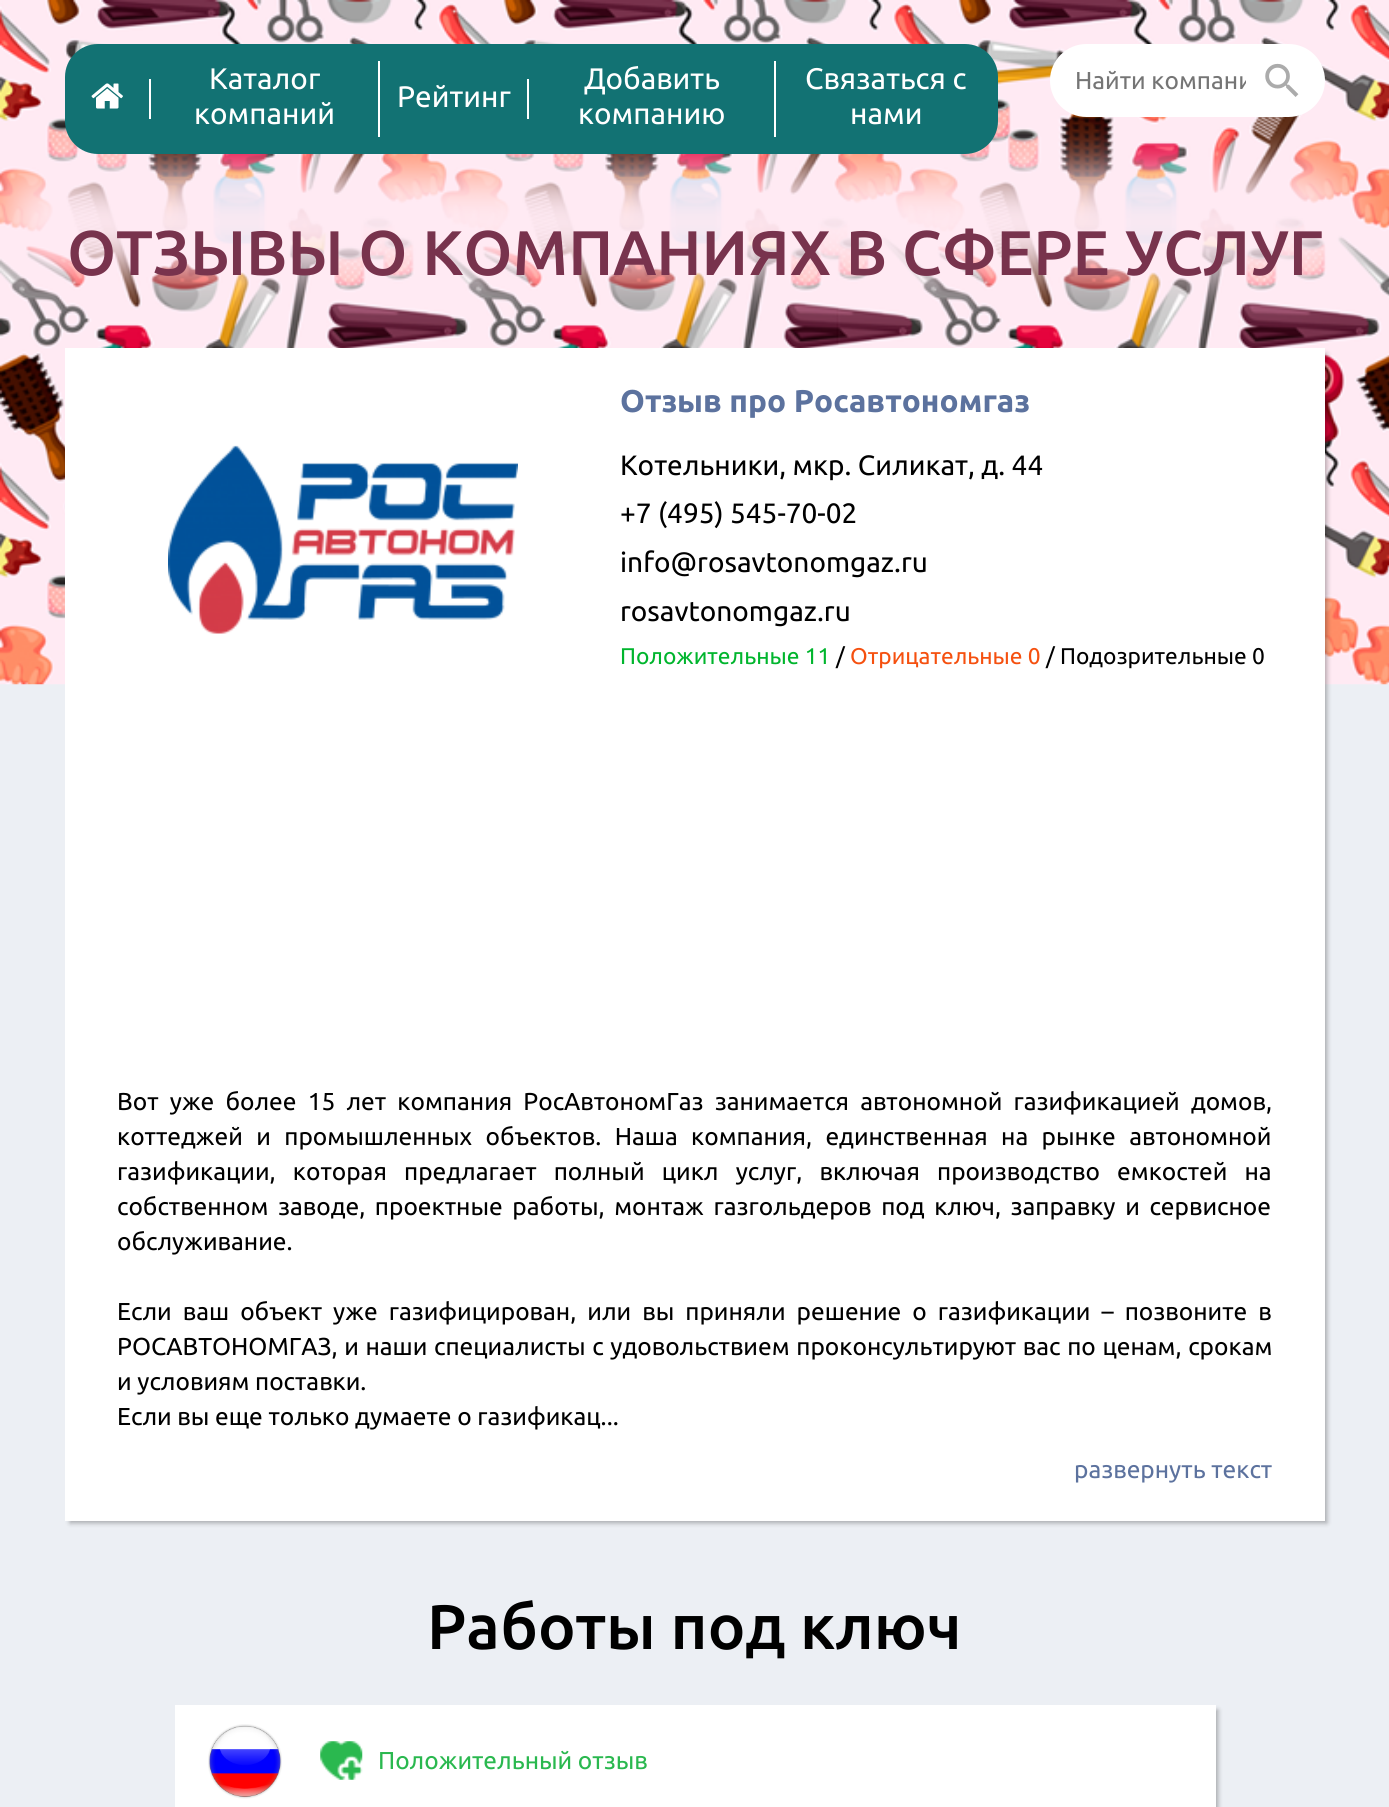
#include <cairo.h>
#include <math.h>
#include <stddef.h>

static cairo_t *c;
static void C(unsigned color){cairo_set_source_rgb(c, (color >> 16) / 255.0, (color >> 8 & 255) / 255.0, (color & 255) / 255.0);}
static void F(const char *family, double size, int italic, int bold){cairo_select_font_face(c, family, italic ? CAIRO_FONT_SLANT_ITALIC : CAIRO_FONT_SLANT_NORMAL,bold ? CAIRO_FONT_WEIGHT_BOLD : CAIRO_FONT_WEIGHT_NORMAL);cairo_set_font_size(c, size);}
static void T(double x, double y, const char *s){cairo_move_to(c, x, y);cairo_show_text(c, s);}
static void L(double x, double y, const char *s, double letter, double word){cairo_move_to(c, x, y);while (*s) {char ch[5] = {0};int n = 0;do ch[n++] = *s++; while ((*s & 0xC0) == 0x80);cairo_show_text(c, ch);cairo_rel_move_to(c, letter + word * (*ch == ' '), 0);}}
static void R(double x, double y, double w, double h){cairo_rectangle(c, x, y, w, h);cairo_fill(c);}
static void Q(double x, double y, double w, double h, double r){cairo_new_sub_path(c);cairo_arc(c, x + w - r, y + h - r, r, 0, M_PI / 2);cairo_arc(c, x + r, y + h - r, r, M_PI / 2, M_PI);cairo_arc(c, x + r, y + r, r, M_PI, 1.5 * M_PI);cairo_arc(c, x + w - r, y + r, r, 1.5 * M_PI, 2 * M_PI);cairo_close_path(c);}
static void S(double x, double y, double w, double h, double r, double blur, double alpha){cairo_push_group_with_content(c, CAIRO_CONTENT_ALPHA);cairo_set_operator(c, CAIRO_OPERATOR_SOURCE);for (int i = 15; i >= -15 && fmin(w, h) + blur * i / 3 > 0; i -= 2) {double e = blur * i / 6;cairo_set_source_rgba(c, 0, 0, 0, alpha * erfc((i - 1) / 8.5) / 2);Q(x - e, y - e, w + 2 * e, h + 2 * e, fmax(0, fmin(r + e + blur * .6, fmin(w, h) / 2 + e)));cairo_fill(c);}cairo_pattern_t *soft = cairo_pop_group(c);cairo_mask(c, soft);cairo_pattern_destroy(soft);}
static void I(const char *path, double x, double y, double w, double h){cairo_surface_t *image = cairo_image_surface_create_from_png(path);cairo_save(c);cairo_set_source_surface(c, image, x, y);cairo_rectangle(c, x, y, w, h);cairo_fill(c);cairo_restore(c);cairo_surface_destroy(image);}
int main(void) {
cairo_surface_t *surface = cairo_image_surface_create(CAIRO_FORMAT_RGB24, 1389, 1807);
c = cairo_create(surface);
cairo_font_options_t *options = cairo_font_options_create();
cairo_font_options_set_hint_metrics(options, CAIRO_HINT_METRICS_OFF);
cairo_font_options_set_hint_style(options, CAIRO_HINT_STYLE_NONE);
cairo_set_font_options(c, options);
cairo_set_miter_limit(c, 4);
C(0xeceff4);
cairo_paint(c);
I("1.png",0,0,1389,685);
C(0x127273);
Q(65,44,933,110,33);
cairo_fill(c);
I("2.png",91,83,32,26);
C(0xffffff);
R(149,79,2,40);
F("Ubuntu",29.75,0,0);
T(209,89,"Каталог");
R(378,61,2,76);
T(194,124,"компаний");
T(397,107,"Рейтинг");
R(527,79,2,40);
T(584,89,"Добавить");
R(774,61,2,76);
T(578,124,"компанию");
T(805,89,"Связаться с");
T(850,124,"нами");
Q(1050,44,275,73,36.5);
cairo_fill(c);
cairo_save(c);
cairo_rectangle(c,1076,67,170,28);
cairo_clip(c);
F("Ubuntu",24.5,0,0);
C(0x757575);
T(1075,89,"Найти компани");
cairo_restore(c);
I("3.png",1265,63,34,34);
F("Ubuntu Medium",63,0,0);
C(0x78334d);
T(67,275,"ОТЗЫВЫ О КОМПАНИЯХ В СФЕРЕ УСЛУГ");
C(0x000000);
S(70,354,1257,1169,0,2.5,.3);
C(0xffffff);
R(65,348,1260,1173);
I("4.png",168,445,350,189);
F("Ubuntu",31.5,0,1);
C(0x5c729e);
T(620,412,"Отзыв про Росавтономгаз");
F("Ubuntu",28,0,0);
C(0x000000);
T(620,475,"Котельники, мкр. Силикат, д. 44");
T(620,523,"+7 (495) 545-70-02");
T(620,572,"info@rosavtonomgaz.ru");
T(620,621,"rosavtonomgaz.ru");
F("Ubuntu",22.75,0,0);
C(0x00b52d);
T(620,664,"Положительные 11");
C(0x000000);
T(836,664,"/");
C(0xf5500f);
T(850,664,"Отрицательные 0");
C(0x000000);
T(1046,664,"/ Подозрительные 0");
F("Ubuntu",24.5,0,0);
L(117,1110,"Вот уже более 15 лет компания РосАвтономГаз занимается автономной газификацией домов,",0,5.5);
L(117,1145,"коттеджей и промышленных объектов. Наша компания, единственная на рынке автономной",0,7.75);
L(117,1180,"газификации, которая предлагает полный цикл услуг, включая производство емкостей на",0,11.5);
L(117,1215,"собственном заводе, проектные работы, монтаж газгольдеров под ключ, заправку и сервисное",0,4);
T(117,1250,"обслуживание.");
L(117,1320,"Если ваш объект уже газифицирован, или вы приняли решение о газификации – позвоните в",0,5.4);
L(117,1355,"РОСАВТОНОМГАЗ, и наши специалисты с удовольствием проконсультируют вас по ценам, срокам",0,1);
T(117,1390,"и условиям поставки.");
T(117,1425,"Если вы еще только думаете о газификац...");
C(0x5c729e);
T(1074,1478,"развернуть текст");
F("Ubuntu Medium",63,0,0);
C(0x000000);
T(427,1649,"Работы под ключ");
C(0x000000);
S(180,1710,1038,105,0,2.5,.3);
C(0xffffff);
R(175,1705,1041,102);
I("5.png",208,1724,74,75);
I("6.png",320,1741,43,39);
F("Ubuntu",24.5,0,0);
C(0x2ab84f);
T(378,1769,"Положительный отзыв");
cairo_surface_write_to_png(surface, "o.png");
cairo_font_options_destroy(options);
cairo_destroy(c);
cairo_surface_destroy(surface);
return 0;
}
